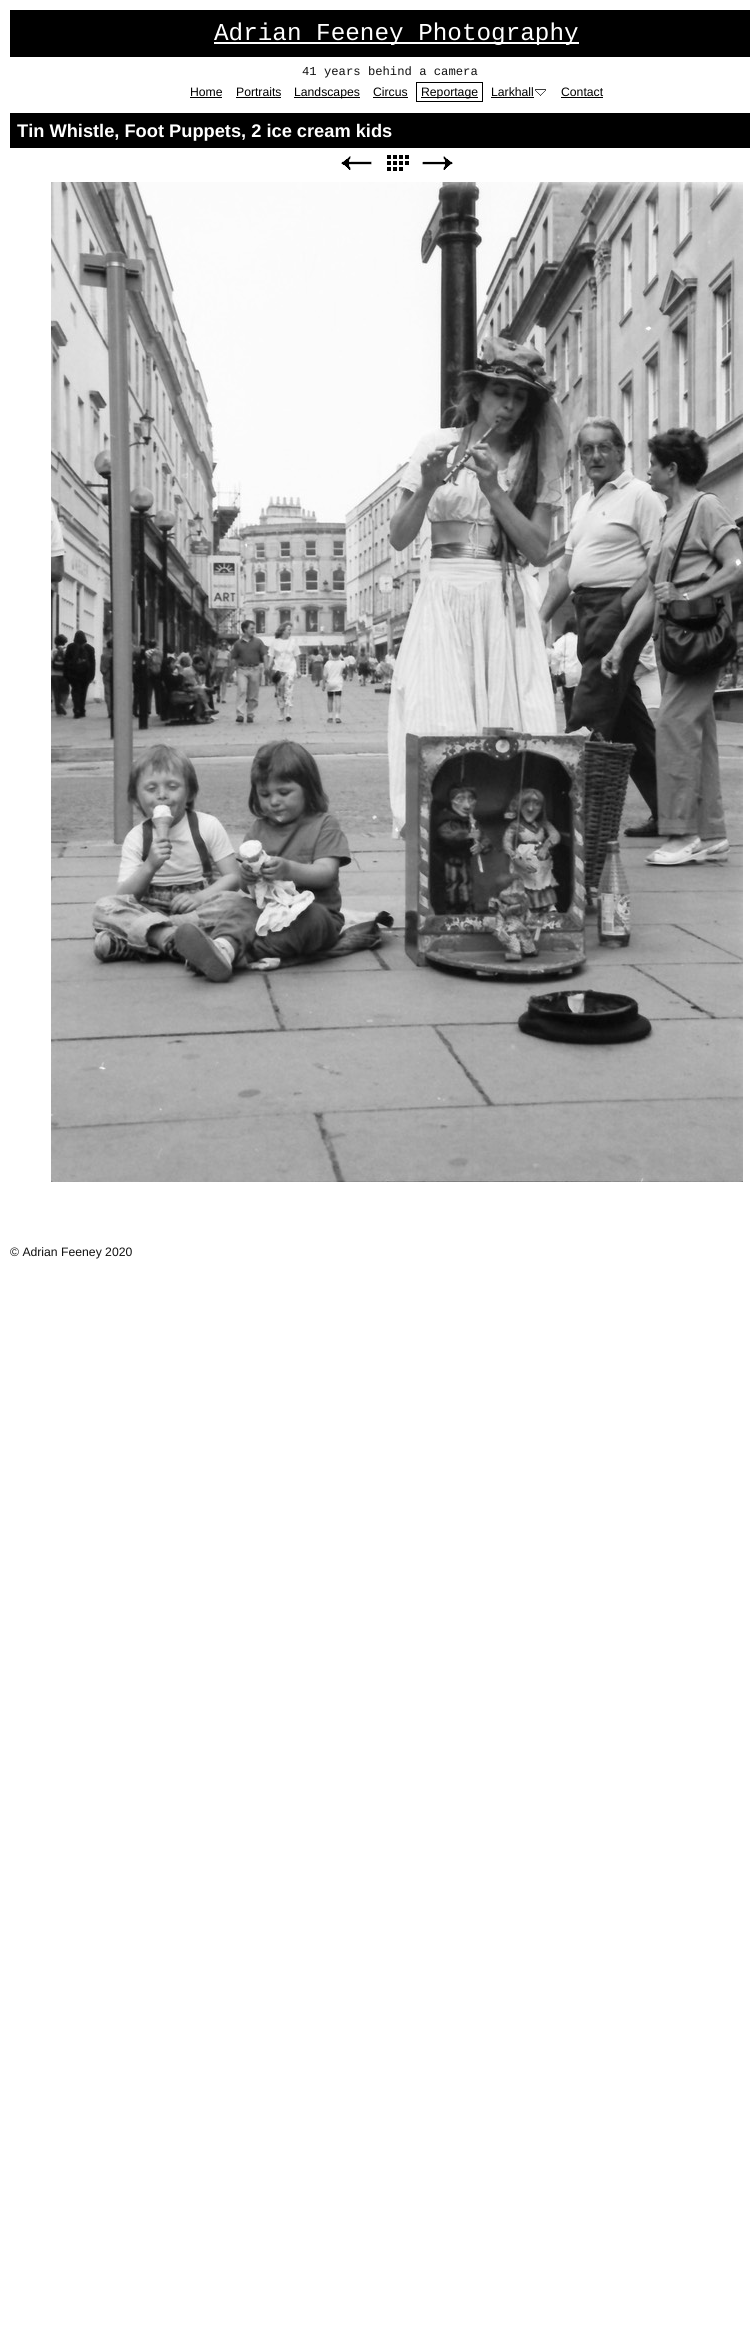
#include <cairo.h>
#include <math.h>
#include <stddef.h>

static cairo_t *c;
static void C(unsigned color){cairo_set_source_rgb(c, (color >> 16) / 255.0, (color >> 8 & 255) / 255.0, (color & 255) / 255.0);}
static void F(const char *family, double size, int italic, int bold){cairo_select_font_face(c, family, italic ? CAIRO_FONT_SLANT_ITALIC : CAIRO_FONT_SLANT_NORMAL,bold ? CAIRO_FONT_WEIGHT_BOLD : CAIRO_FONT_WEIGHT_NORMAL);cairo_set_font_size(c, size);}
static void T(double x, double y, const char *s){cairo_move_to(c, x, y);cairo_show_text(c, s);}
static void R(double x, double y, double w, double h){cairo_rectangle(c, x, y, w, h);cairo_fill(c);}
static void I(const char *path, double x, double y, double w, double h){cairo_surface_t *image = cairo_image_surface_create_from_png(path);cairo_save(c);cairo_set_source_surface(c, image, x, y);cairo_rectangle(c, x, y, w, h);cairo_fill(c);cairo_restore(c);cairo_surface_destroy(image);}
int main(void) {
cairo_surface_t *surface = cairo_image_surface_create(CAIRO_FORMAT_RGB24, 750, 2352);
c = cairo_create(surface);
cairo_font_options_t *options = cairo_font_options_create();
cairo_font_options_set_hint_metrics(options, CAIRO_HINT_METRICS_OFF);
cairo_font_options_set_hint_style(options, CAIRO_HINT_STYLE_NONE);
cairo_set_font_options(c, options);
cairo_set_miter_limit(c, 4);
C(0xffffff);
cairo_paint(c);
C(0x000000);
R(10,10,740,47);
C(0xffffff);
R(214,42,365,2);
F("Liberation Mono",24.3,0,0);
T(214,40,"Adrian Feeney Photography");
F("Liberation Mono",12.2,0,0);
C(0x111111);
T(302,75,"41 years behind a camera");
F("Liberation Sans",12.2,0,0);
C(0x000000);
T(190,96,"Home");
R(190,97,32,1);
T(236,96,"Portraits");
R(236,97,45,1);
R(294,97,66,1);
T(294,96,"Landscapes");
T(373,96,"Circus");
R(373,97,35,1);
cairo_rectangle(c,416.5,82.5,66,19);
cairo_set_line_width(c,1);
cairo_stroke(c);
R(421,97,57,1);
T(421,96,"Reportage");
T(491,96,"Larkhall");
R(491,97,43,1);
I("1.png",535,89,11,7);
T(561,96,"Contact");
R(561,97,42,1);
R(10,113,740,35);
F("Liberation Sans",18.25,0,1);
C(0xffffff);
T(17,137,"Tin Whistle, Foot Puppets, 2 ice cream kids");
I("2.png",341,156,31,14);
I("3.png",387,155,22,16);
I("4.png",422,156,31,14);
I("5.png",51,182,692,1000);
F("Liberation Sans",12.2,0,0);
C(0x111111);
T(10,1256,"© Adrian Feeney 2020");
cairo_surface_write_to_png(surface, "o.png");
cairo_font_options_destroy(options);
cairo_destroy(c);
cairo_surface_destroy(surface);
return 0;
}
